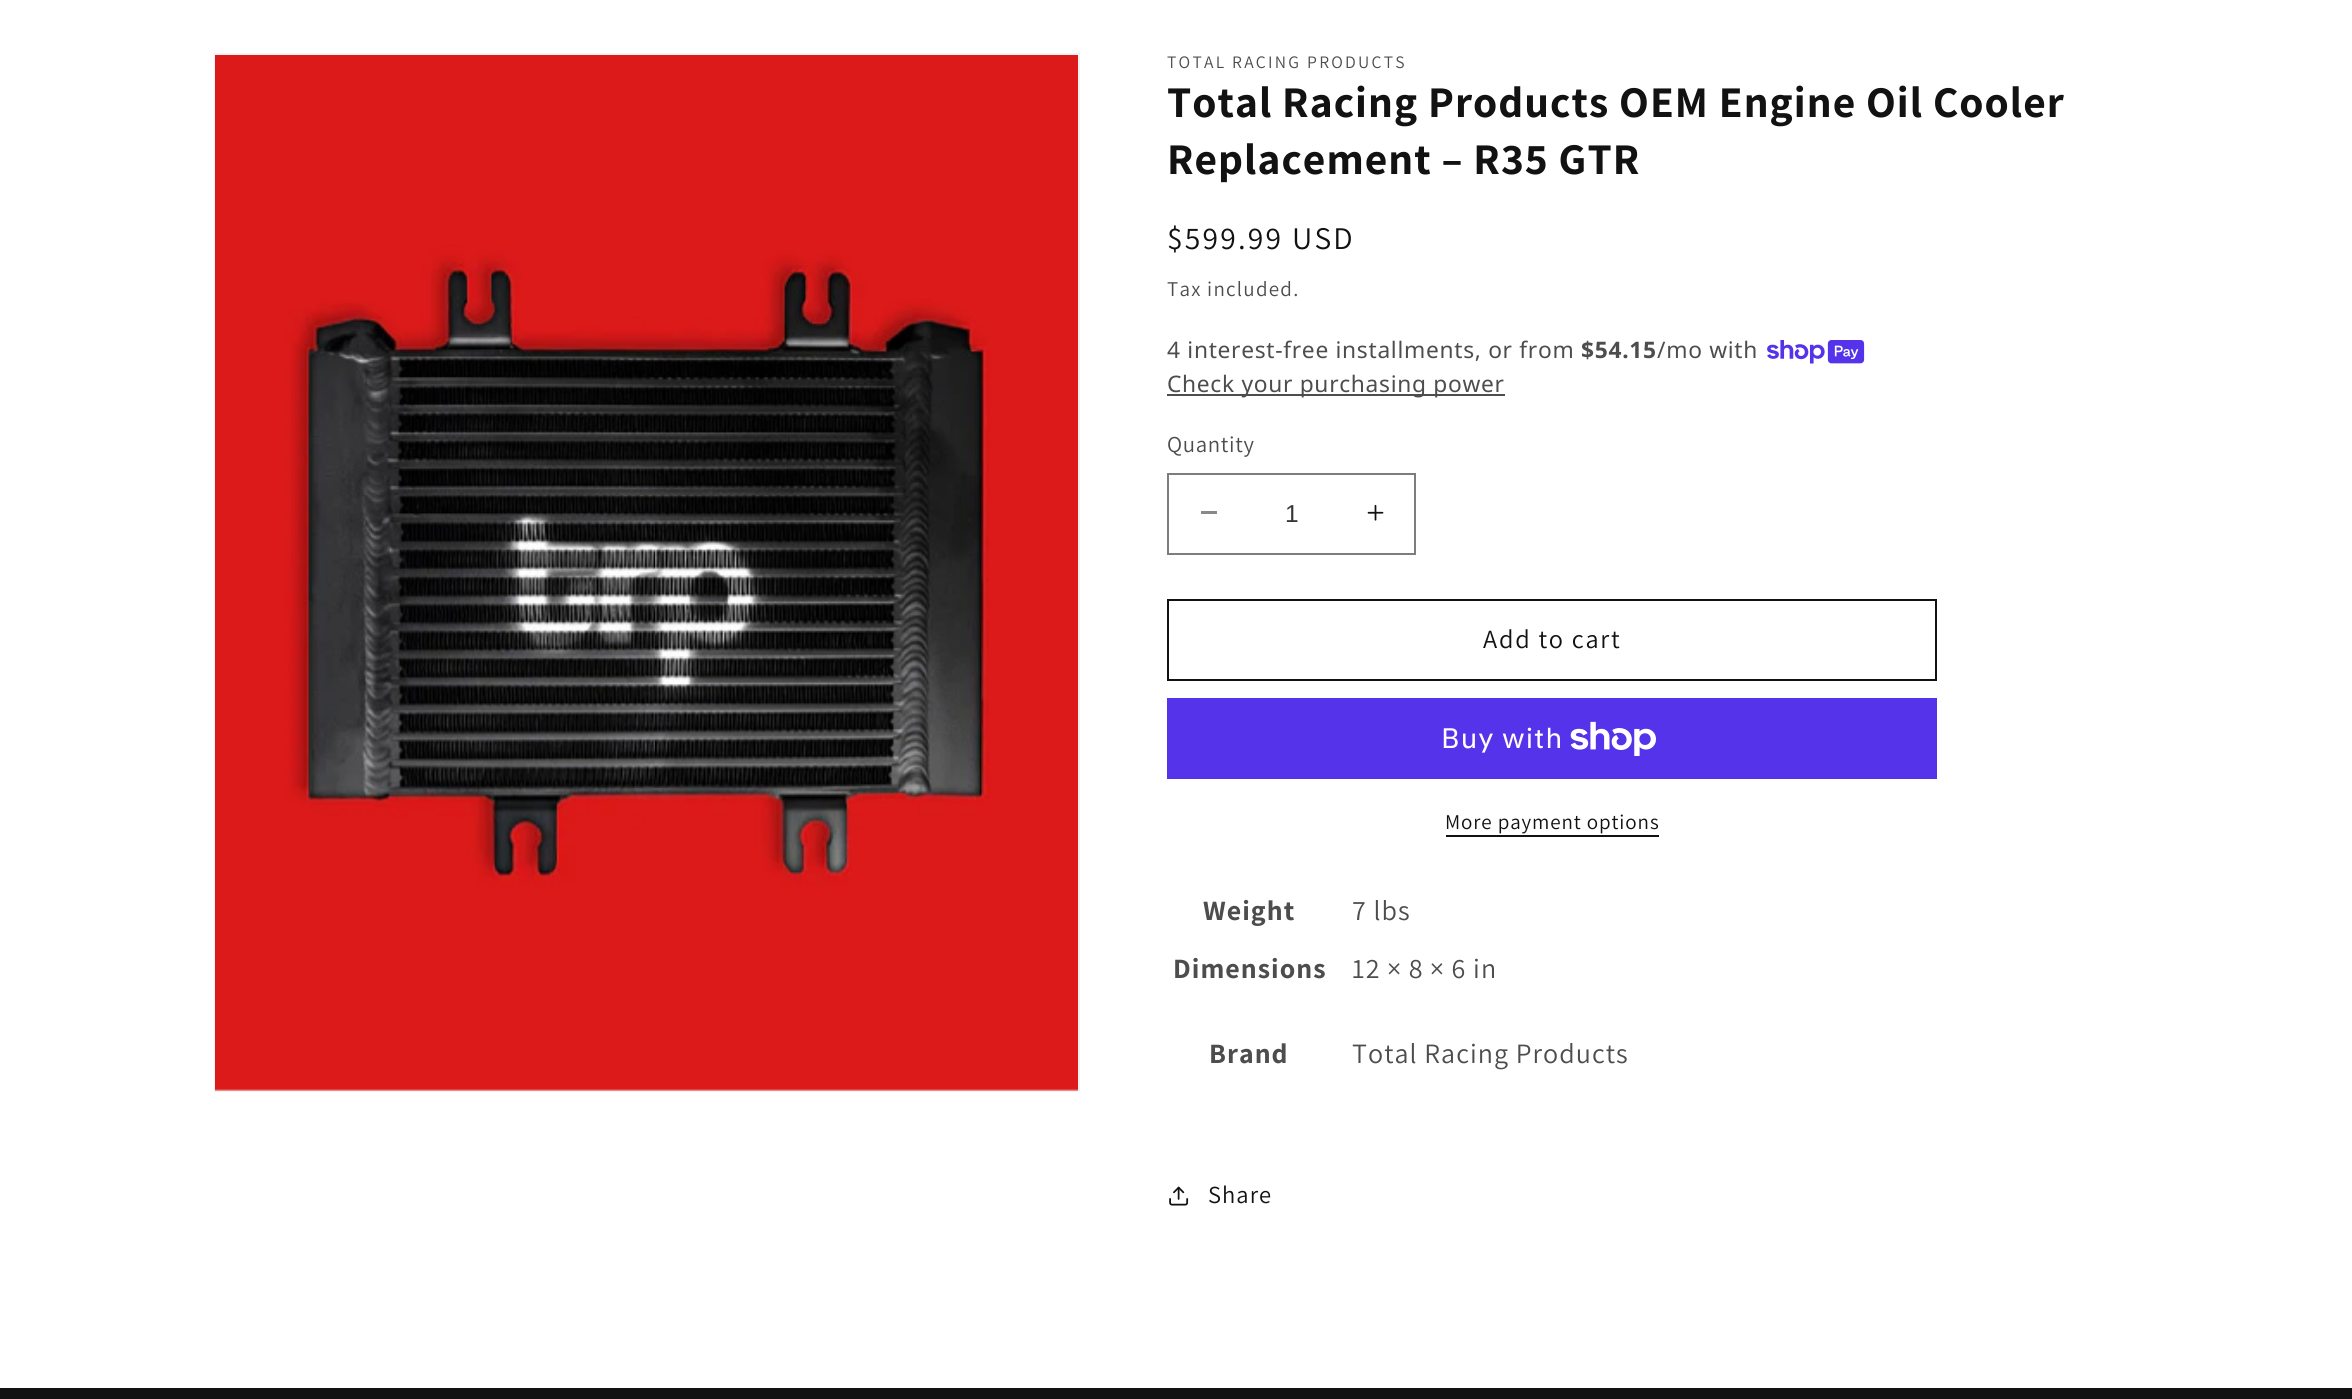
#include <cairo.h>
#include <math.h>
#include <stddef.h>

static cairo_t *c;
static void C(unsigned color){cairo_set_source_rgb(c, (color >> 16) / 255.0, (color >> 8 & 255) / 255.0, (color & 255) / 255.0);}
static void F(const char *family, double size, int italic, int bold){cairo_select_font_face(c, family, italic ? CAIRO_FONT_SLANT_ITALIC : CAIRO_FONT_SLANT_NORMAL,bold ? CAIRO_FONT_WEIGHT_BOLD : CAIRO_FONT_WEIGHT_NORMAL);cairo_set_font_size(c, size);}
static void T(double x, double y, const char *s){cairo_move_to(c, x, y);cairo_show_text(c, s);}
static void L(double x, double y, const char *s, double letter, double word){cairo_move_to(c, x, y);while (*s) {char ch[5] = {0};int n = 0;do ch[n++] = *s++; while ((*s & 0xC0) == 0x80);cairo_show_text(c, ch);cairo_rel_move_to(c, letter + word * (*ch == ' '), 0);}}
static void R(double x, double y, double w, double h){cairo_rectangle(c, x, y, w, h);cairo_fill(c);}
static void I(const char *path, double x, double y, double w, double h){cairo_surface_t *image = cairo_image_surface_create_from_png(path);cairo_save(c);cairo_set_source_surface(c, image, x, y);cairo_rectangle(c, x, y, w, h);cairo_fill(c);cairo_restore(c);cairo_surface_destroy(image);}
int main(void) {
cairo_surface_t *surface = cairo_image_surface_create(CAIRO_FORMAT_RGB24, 2352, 1399);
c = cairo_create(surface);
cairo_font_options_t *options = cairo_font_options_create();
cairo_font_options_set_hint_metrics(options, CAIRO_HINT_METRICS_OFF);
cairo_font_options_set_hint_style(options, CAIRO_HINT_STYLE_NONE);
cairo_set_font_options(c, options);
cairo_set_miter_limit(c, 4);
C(0xffffff);
cairo_paint(c);
cairo_rectangle(c,215,54,864,1037);
C(0xf3f3f3);
cairo_stroke(c);
I("1.png",215,55,863,1036);
F("Assistant",17.5,0,0);
C(0x4d4d4d);
L(1167,68,"TOTAL RACING PRODUCTS",2.25,0);
F("Assistant",43.75,0,1);
C(0x121212);
L(1167,117,"Total Racing Products OEM Engine Oil Cooler",1.05,0);
L(1167,174,"Replacement – R35 GTR",1.05,0);
F("Assistant",31.5,0,0);
L(1167,249,"$599.99 USD",2.25,0);
F("Assistant",21,0,0);
C(0x4d4d4d);
L(1167,296,"Tax included.",1.25,0);
F("Noto Sans",22.75,0,0);
L(1167,358,"4 interest-free installments, or from",.7,0);
F("Noto Sans",22.75,0,1);
L(1581,358,"$54.15",.7,0);
F("Noto Sans",22.75,0,0);
L(1657,358,"/mo with",.7,0);
I("2.png",1767,340,98,24);
R(1167,394,338,2);
L(1167,392,"Check your purchasing power",.7,0);
F("Assistant",22.75,0,0);
L(1167,452,"Quantity",.7,0);
C(0x898989);
R(1201,511,16,3);
I("3.png",1367,504,17,17);
cairo_rectangle(c,1168,474,247,80);
C(0x7d7d7d);
cairo_stroke(c);
F("Liberation Sans",24.5,0,0);
C(0x363636);
T(1285,522,"1");
cairo_rectangle(c,1168,600,768,80);
C(0x121212);
cairo_stroke(c);
F("Assistant",26.25,0,0);
L(1483,648,"Add to cart",1.75,0);
C(0x5433eb);
R(1167,698,770,81);
F("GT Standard",28,0,0);
C(0xffffff);
L(1441,748,"Buy with",1.05,0);
I("4.png",1570,721,86,35);
F("Assistant",21,0,0);
C(0x121212);
L(1445,829,"More payment options",.9,0);
R(1446,835,213,2);
F("Assistant",28,0,1);
C(0x4d4d4d);
L(1203,920,"Weight",1.05,0);
F("Assistant",28,0,0);
L(1352,920,"7 lbs",1.05,0);
F("Assistant",28,0,1);
L(1173,978,"Dimensions",1.05,0);
F("Assistant",28,0,0);
L(1352,978,"12 × 8 × 6 in",1.05,0);
F("Assistant",28,0,1);
L(1209,1063,"Brand",1.05,0);
F("Assistant",28,0,0);
L(1352,1063,"Total Racing Products",1.05,0);
I("5.png",1169,1186,20,20);
F("Assistant",24.5,0,0);
C(0x121212);
L(1208,1203,"Share",1.05,0);
R(0,1388,2352,11);
cairo_surface_write_to_png(surface, "o.png");
cairo_font_options_destroy(options);
cairo_destroy(c);
cairo_surface_destroy(surface);
return 0;
}
